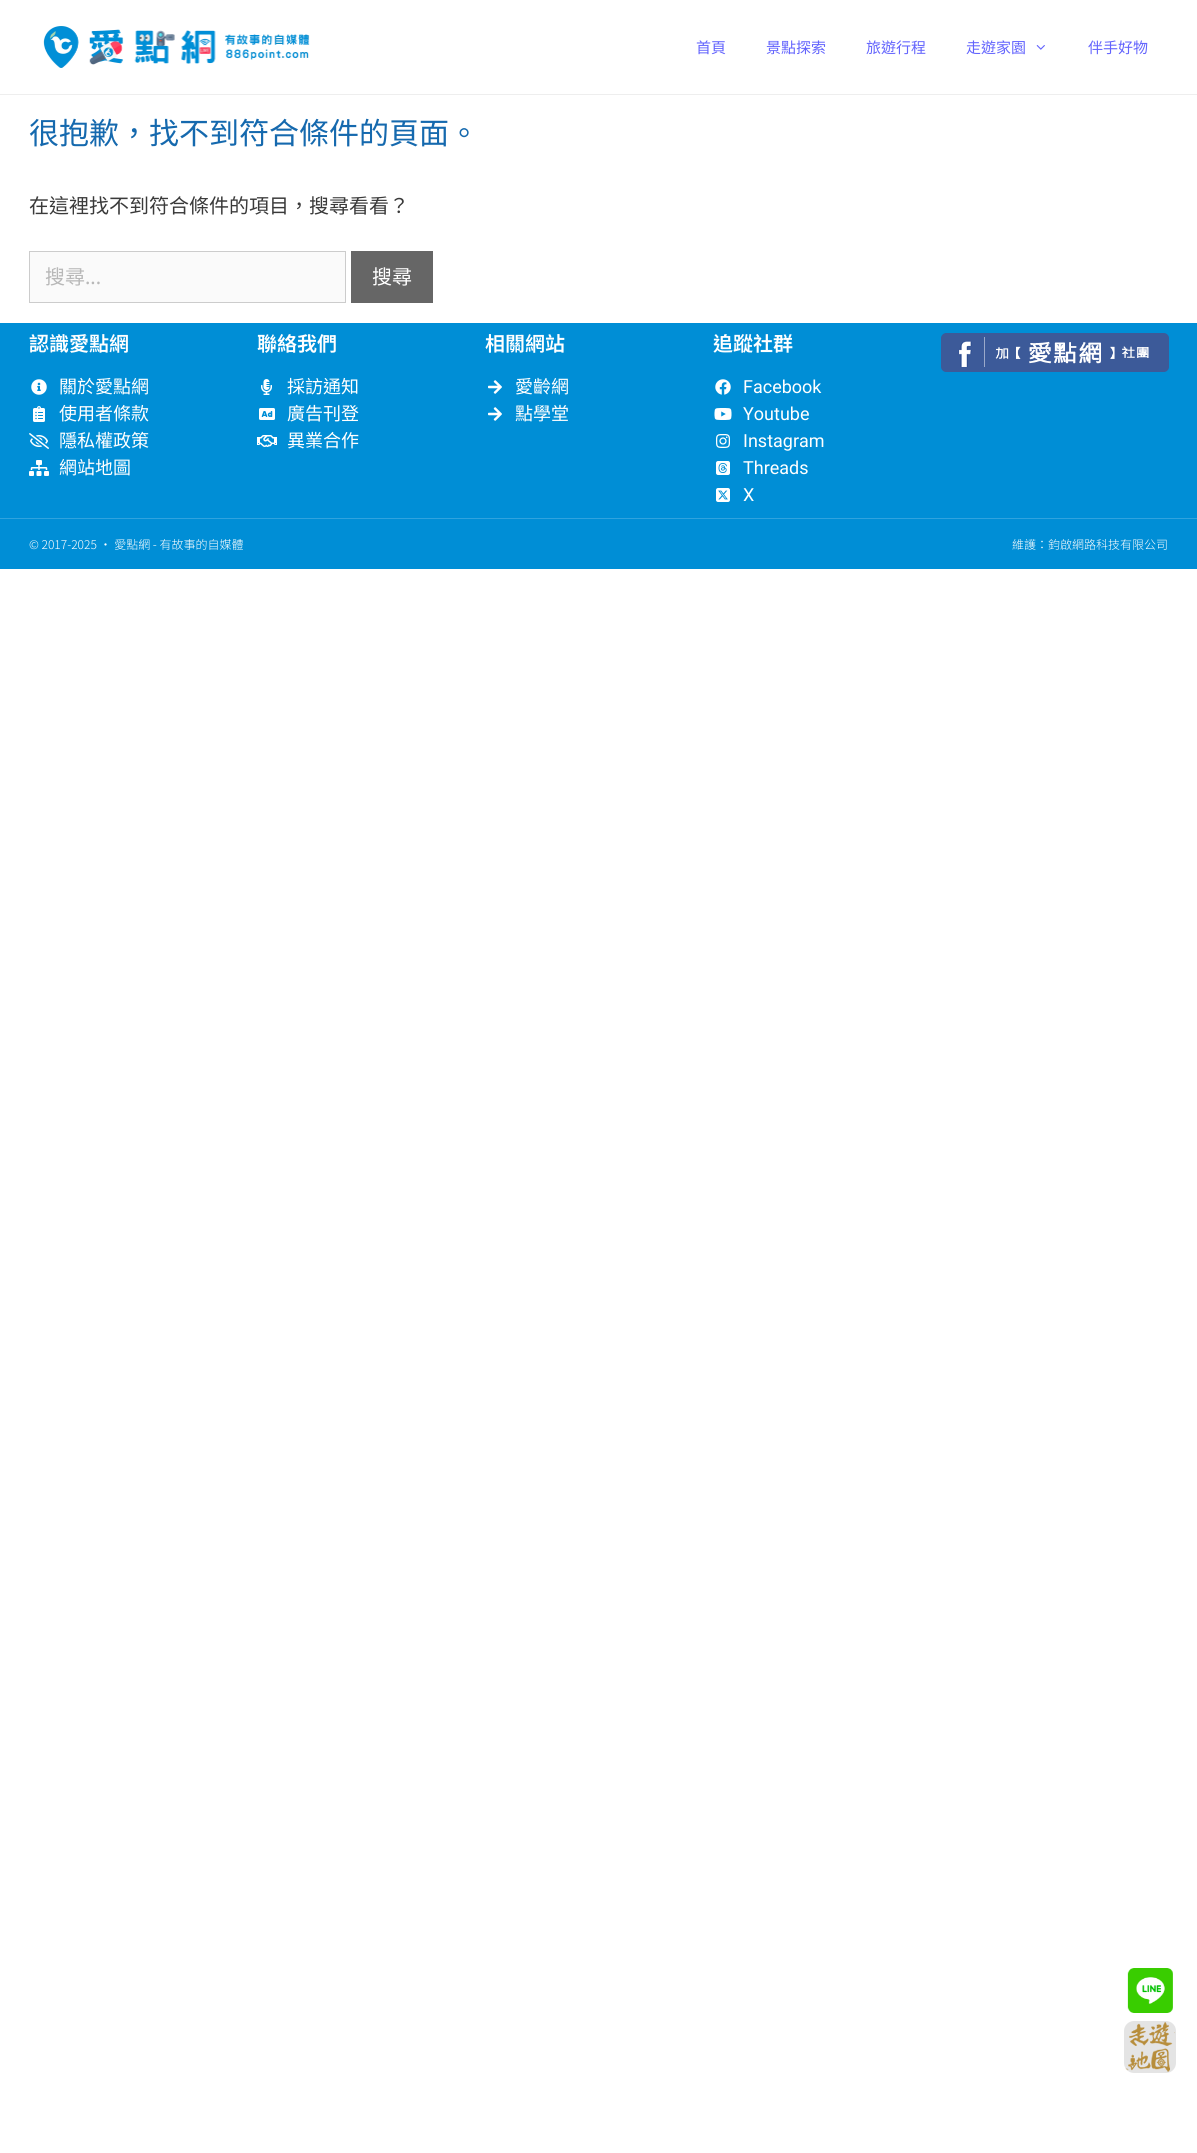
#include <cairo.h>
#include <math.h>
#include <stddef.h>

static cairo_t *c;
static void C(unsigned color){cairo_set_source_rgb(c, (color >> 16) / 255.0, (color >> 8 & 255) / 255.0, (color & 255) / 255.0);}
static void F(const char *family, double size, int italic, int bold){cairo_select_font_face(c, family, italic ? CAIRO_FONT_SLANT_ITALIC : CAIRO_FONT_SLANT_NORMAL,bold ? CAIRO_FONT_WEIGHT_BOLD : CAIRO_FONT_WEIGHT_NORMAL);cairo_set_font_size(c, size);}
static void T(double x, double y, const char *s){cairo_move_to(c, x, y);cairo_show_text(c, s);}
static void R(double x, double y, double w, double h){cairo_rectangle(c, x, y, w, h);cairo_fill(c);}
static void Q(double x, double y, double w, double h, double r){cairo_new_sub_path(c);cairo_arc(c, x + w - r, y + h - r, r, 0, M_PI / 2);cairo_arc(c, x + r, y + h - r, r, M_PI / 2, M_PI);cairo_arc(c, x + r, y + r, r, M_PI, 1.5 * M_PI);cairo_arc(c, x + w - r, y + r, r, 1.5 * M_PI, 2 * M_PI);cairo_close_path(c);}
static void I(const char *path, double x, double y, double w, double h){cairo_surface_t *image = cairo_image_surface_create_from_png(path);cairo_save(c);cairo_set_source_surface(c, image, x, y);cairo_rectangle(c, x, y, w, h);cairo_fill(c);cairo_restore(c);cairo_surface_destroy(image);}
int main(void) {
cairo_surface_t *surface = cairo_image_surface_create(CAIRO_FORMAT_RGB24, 1197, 2153);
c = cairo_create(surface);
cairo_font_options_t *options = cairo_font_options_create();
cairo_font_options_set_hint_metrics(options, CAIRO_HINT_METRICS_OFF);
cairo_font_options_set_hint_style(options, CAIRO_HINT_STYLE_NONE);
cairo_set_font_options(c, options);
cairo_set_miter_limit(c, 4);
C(0xffffff);
cairo_paint(c);
C(0xeeeeee);
R(0,94,1197,1);
I("1.png",43,26,267,42);
F("Noto Sans CJK TC",15,0,0);
C(0x6364fd);
T(696,53,"首頁");
T(766,53,"景點探索");
T(866,53,"旅遊行程");
T(966,53,"走遊家園");
I("2.png",1036,45,9,5);
T(1088,53,"伴手好物");
F("Noto Sans CJK TC",30,0,0);
C(0x1569ae);
T(29,144,"很抱歉，找不到符合條件的頁面。");
F("Noto Sans CJK TC",20,0,0);
C(0x3a3a3a);
T(29,213,"在這裡找不到符合條件的項目，搜尋看看？");
C(0xfafafa);
cairo_rectangle(c,29.5,251.5,316,51);
cairo_fill_preserve(c);
C(0xcccccc);
cairo_set_line_width(c,1);
cairo_stroke(c);
C(0xb8b8b8);
T(45,284,"搜尋");
F("Noto Sans",20,0,0);
T(85,284,"...");
C(0x666666);
R(351,251,82,52);
F("Noto Sans CJK TC",20,0,0);
C(0xffffff);
T(372,284,"搜尋");
C(0x008ed6);
R(0,323,1197,195);
F("Noto Sans HK SemiBold",20,0,0);
C(0xffffff);
T(29,351,"認識愛點網");
I("3.png",31,379,16,16);
F("Noto Sans TC",18,0,0);
T(59,393,"關於愛點網");
I("4.png",33,406,12,16);
T(59,420,"使用者條款");
I("5.png",29,433,20,16);
T(59,447,"隱私權政策");
I("6.png",29,460,20,16);
T(59,474,"網站地圖");
F("Noto Sans HK SemiBold",20,0,0);
T(257,351,"聯絡我們");
I("7.png",261,379,11,16);
F("Noto Sans TC",18,0,0);
T(287,393,"採訪通知");
I("8.png",259,408,16,12);
T(287,420,"廣告刊登");
I("9.png",257,435,20,12);
T(287,447,"異業合作");
F("Noto Sans HK SemiBold",20,0,0);
T(485,351,"相關網站");
I("10.png",488,380,14,14);
F("Noto Sans TC",18,0,0);
T(515,393,"愛齡網");
I("10.png",488,407,14,14);
T(515,420,"點學堂");
F("Noto Sans HK SemiBold",20,0,0);
T(713,351,"追蹤社群");
I("11.png",715,379,16,16);
F("Roboto",18,0,0);
T(743,393,"Facebook");
I("12.png",714,408,18,12);
T(743,420,"Youtube");
I("13.png",716,434,14,14);
T(743,447,"Instagram");
I("14.png",716,461,14,14);
T(743,474,"Threads");
I("15.png",716,488,14,14);
T(743,501,"X");
I("16.png",941,333,228,39);
C(0x008ed6);
R(0,519,1197,50);
C(0x30a3de);
R(0,518,1197,1);
F("Noto Sans HK Light",12,0,0);
C(0xffffff);
T(29,549,"© 2017-2025 • 愛點網 - 有故事的自媒體");
T(1012,549,"維護：鈞啟網路科技有限公司");
I("17.png",1127,1968,46,45);
C(0xe4e4e4);
Q(1124,2021,52,52,10);
cairo_fill(c);
I("18.png",1125,2022,50,50);
cairo_surface_write_to_png(surface, "o.png");
cairo_font_options_destroy(options);
cairo_destroy(c);
cairo_surface_destroy(surface);
return 0;
}
